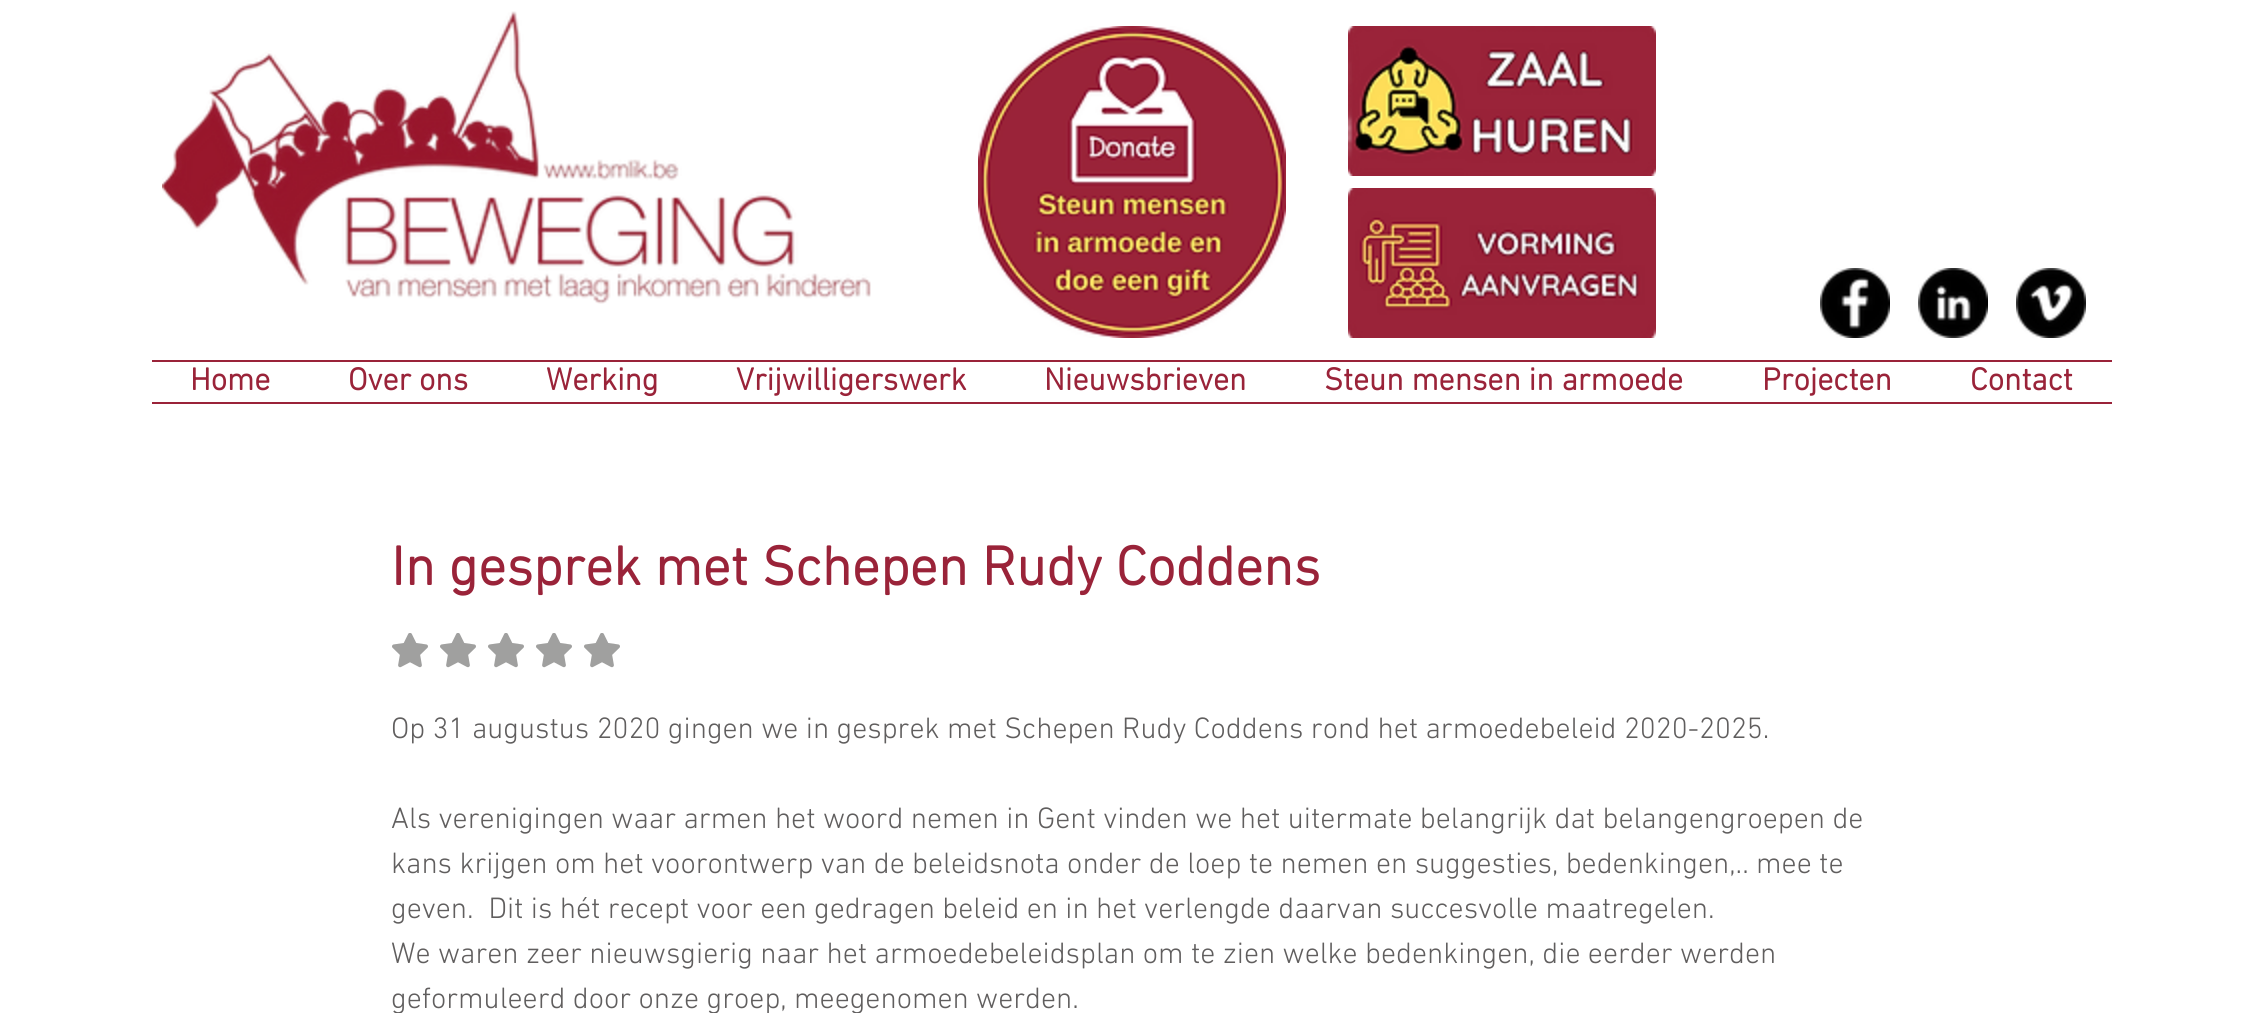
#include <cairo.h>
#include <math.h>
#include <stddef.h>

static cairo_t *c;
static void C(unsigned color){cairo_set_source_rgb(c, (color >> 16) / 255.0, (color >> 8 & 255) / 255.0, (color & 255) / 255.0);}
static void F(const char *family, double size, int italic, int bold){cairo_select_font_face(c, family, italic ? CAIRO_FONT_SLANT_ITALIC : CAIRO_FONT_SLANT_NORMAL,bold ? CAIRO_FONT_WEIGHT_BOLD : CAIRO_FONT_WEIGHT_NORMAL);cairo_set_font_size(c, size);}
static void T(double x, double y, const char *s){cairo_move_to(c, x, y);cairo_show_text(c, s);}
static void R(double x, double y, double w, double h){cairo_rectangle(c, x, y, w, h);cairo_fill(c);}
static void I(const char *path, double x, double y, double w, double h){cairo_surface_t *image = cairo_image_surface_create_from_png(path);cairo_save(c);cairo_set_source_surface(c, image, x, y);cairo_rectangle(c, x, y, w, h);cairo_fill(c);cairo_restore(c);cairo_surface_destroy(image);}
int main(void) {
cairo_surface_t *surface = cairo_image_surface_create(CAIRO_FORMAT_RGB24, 2262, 1013);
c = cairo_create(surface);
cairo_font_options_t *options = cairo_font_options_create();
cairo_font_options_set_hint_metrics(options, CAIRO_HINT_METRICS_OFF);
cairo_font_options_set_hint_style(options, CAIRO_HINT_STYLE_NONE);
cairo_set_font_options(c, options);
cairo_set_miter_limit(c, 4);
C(0xffffff);
cairo_paint(c);
I("1.png",162,11,709,293);
I("2.png",978,26,308,312);
I("3.png",1348,26,308,150);
I("4.png",1348,188,308,150);
I("5.png",1820,268,70,70);
I("6.png",1918,268,70,70);
I("7.png",2016,268,70,70);
C(0x9a2339);
R(152,360,1960,2);
R(152,402,1960,2);
F("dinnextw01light",32,0,1);
T(190,390,"Home");
T(348,390,"Over ons");
T(546,390,"Werking");
T(736,390,"Vrijwilligerswerk");
T(1044,390,"Nieuwsbrieven");
T(1324,390,"Steun mensen in armoede");
T(1762,390,"Projecten");
T(1970,390,"Contact");
F("dinnextw01light",56,0,1);
T(391,585,"In gesprek met Schepen Rudy Coddens");
I("8.png",392,633,36,35);
I("8.png",440,633,36,35);
I("8.png",488,633,36,35);
I("8.png",536,633,36,35);
I("8.png",584,633,36,35);
F("dinnextw01light Light",30,0,0);
C(0x605e5e);
T(391,738,"Op 31 augustus 2020 gingen we in gesprek met Schepen Rudy Coddens rond het armoedebeleid 2020-2025.");
T(391,828,"Als verenigingen waar armen het woord nemen in Gent vinden we het uitermate belangrijk dat belangengroepen de");
T(391,873,"kans krijgen om het voorontwerp van de beleidsnota onder de loep te nemen en suggesties, bedenkingen,.. mee te");
T(391,918,"geven.  Dit is hét recept voor een gedragen beleid en in het verlengde daarvan succesvolle maatregelen.");
T(391,963,"We waren zeer nieuwsgierig naar het armoedebeleidsplan om te zien welke bedenkingen, die eerder werden");
T(391,1008,"geformuleerd door onze groep, meegenomen werden.");
cairo_surface_write_to_png(surface, "o.png");
cairo_font_options_destroy(options);
cairo_destroy(c);
cairo_surface_destroy(surface);
return 0;
}
